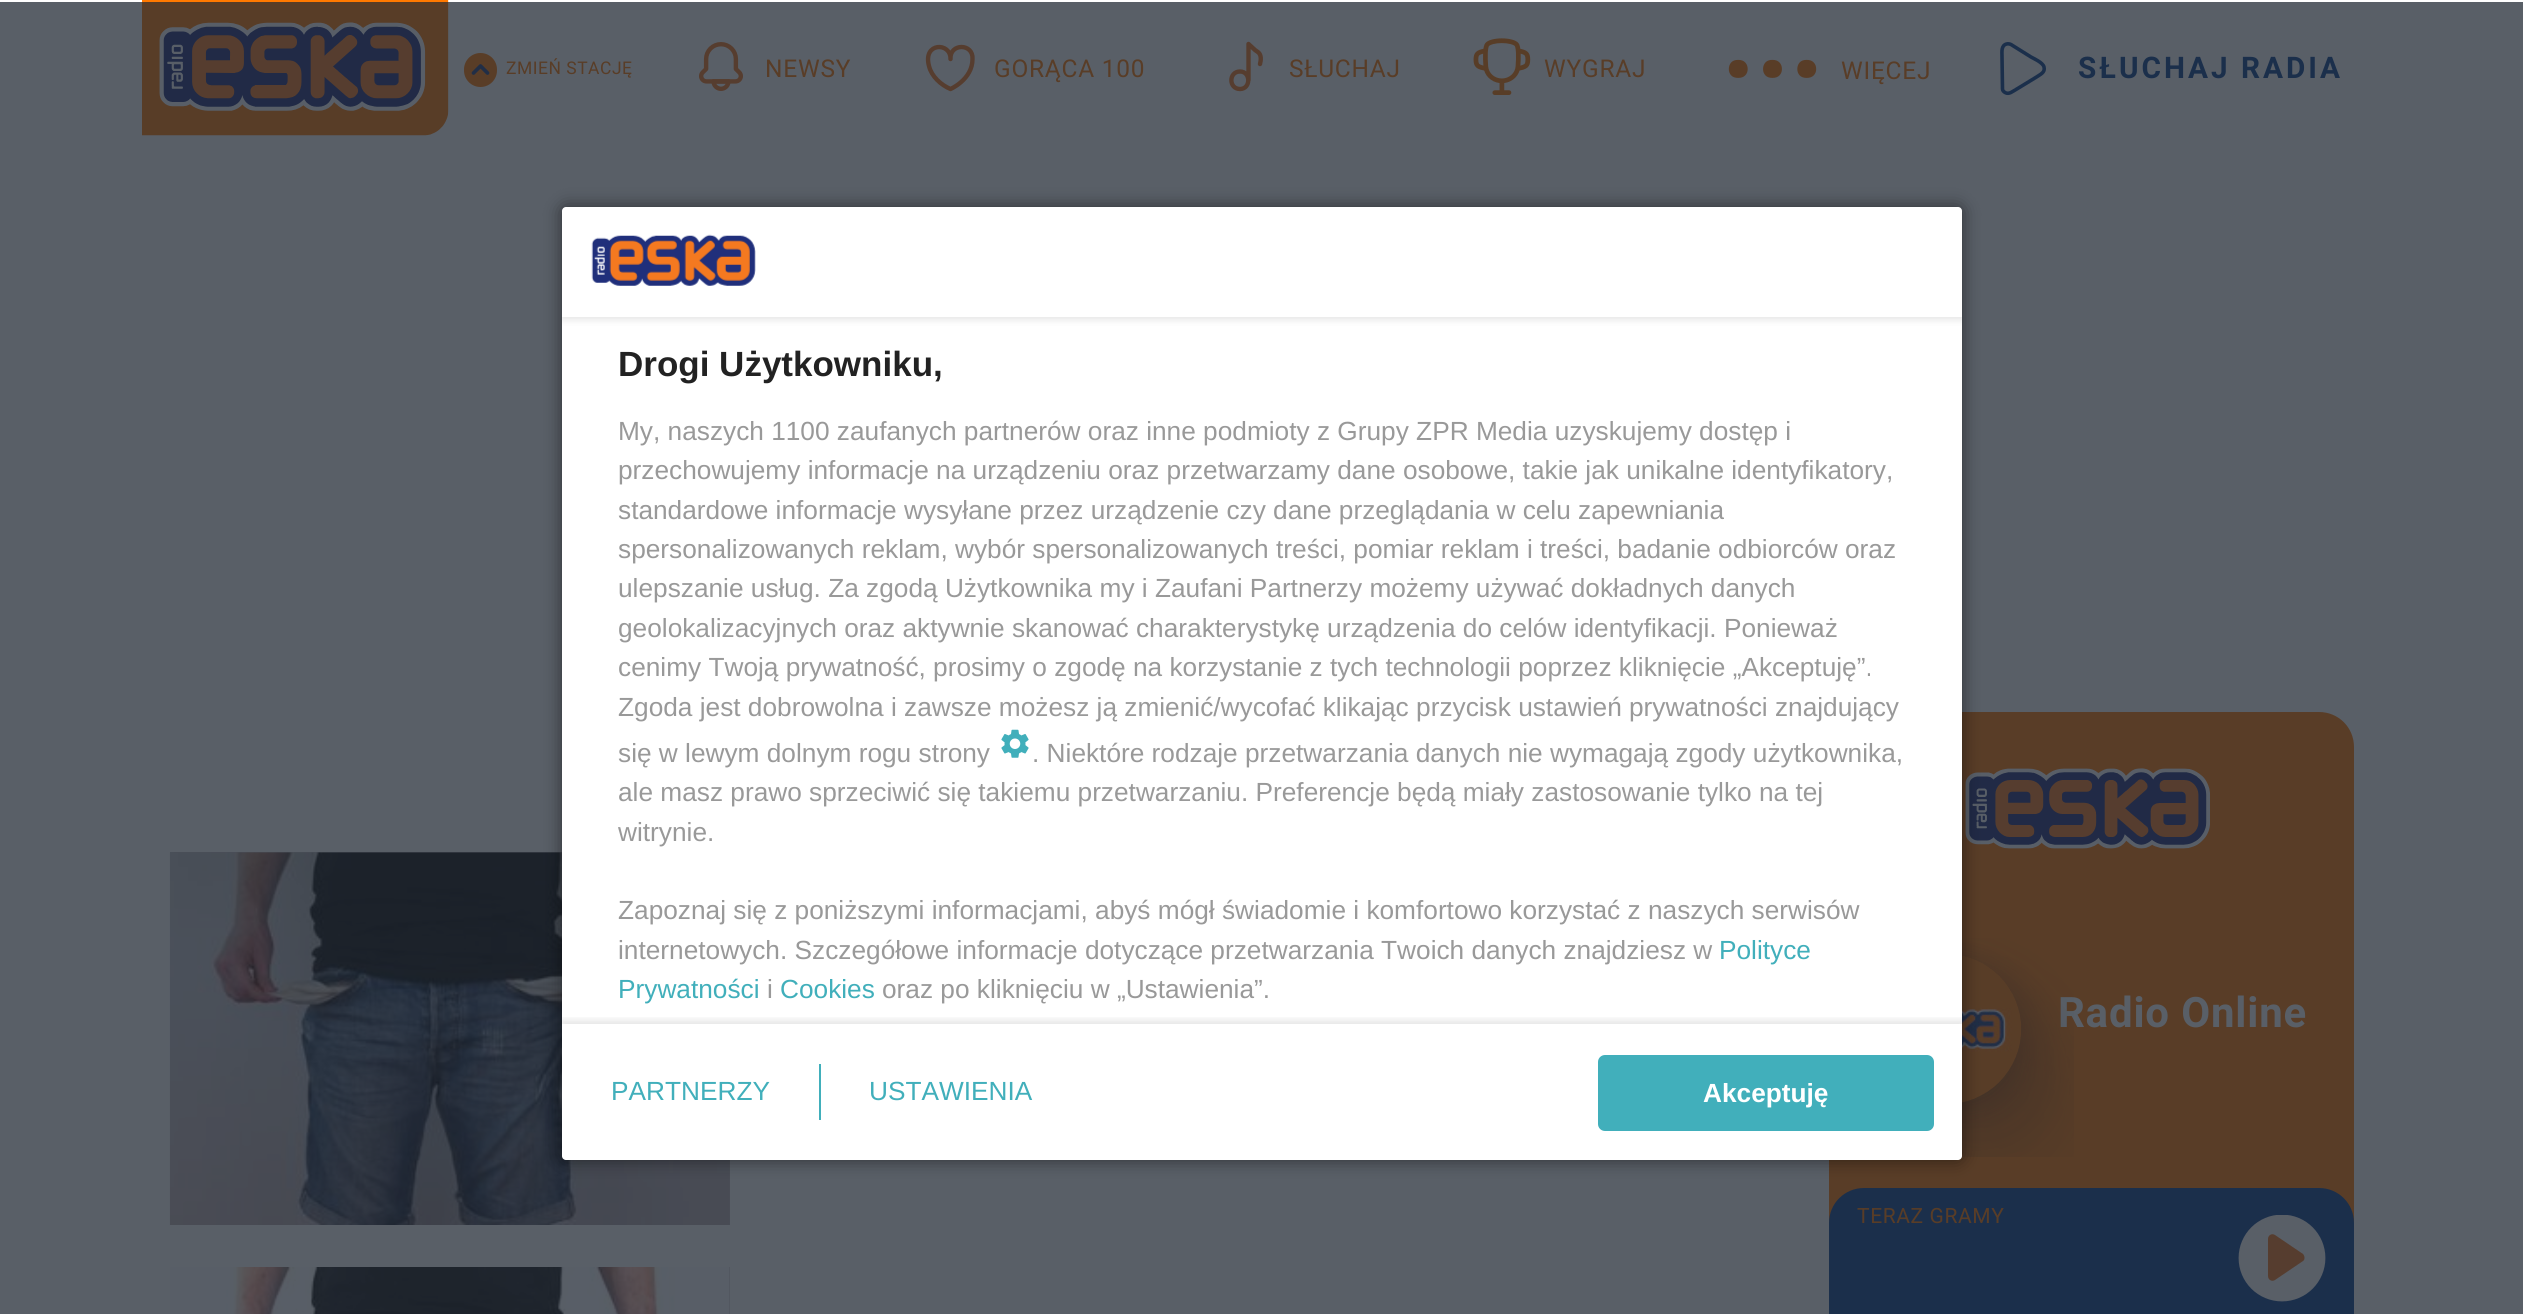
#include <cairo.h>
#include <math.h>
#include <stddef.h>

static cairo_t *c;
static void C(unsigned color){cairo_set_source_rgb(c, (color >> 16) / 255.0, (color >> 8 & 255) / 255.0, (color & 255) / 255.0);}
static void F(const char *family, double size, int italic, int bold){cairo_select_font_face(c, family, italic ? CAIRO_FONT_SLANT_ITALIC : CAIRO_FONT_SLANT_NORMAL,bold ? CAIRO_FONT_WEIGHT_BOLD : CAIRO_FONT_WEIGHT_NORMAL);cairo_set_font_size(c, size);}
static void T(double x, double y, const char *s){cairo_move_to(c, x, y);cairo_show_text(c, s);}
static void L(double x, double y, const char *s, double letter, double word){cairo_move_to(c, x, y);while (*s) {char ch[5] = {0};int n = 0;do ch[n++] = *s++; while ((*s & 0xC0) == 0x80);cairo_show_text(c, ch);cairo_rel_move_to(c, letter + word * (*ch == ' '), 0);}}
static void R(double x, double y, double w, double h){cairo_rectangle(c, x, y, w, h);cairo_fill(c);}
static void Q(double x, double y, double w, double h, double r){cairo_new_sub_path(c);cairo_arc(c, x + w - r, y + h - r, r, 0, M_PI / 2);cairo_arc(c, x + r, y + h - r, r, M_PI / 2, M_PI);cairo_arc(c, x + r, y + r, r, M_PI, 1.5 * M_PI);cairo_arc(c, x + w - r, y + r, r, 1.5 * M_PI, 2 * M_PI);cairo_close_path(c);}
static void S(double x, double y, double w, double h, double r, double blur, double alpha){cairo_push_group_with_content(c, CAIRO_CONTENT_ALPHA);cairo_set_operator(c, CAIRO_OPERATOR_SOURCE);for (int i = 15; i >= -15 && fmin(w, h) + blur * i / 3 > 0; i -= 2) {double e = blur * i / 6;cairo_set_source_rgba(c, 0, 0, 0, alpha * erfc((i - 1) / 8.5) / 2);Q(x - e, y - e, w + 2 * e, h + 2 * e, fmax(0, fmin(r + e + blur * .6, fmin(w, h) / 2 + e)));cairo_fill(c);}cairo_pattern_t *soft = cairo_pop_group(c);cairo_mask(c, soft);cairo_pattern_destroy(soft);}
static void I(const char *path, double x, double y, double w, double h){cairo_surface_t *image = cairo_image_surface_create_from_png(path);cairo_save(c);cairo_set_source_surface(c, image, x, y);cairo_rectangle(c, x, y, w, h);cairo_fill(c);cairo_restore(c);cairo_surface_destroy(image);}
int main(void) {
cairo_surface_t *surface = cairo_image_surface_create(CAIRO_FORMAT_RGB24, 2523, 1314);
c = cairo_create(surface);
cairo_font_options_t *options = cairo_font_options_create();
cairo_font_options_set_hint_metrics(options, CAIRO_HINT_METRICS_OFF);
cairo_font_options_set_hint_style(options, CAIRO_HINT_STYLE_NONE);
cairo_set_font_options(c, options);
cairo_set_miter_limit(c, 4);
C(0xffffff);
cairo_paint(c);
C(0x595f67);
R(0,2,2523,1312);
I("1.png",142,0,307,136);
C(0x593d27);
Q(464,53,33,34,16.5);
cairo_fill(c);
cairo_new_path(c);
cairo_move_to(c,487.5,73);
cairo_line_to(c,480.5,66);
cairo_line_to(c,473.5,73);
C(0x212e46);
cairo_set_line_width(c,3.7);
cairo_set_line_cap(c,CAIRO_LINE_CAP_ROUND);
cairo_set_line_join(c,CAIRO_LINE_JOIN_ROUND);
cairo_stroke(c);
F("Roboto",17.5,0,0);
C(0x593d27);
L(506,74,"ZMIEŃ STACJĘ",.5,0);
I("2.png",699,42,44,49);
F("Roboto",24.5,0,0);
L(765,77,"NEWSY",.75,0);
cairo_new_path(c);
cairo_move_to(c,972.5,59);
cairo_curve_to(c,972.5,79.5,950.5,89,950.5,89);
cairo_curve_to(c,941,85,931.5,76.5,929,66);
cairo_curve_to(c,922.5,42,951,42,950.5,59);
cairo_curve_to(c,949.5,43,973.5,43,972.5,59);
cairo_close_path(c);
C(0x563d2f);
cairo_set_line_width(c,4.4);
cairo_stroke(c);
C(0x593d27);
L(994,77,"GORĄCA 100",.75,0);
cairo_new_path(c);
cairo_move_to(c,1248.5,80);
cairo_line_to(c,1248.5,44);
cairo_line_to(c,1255,50);
cairo_line_to(c,1258.5,52.5);
cairo_curve_to(c,1261.5,55.5,1261,60,1260,64);
cairo_move_to(c,1240,89);
cairo_curve_to(c,1251,89,1251,71.5,1240,71.5);
cairo_curve_to(c,1228.5,71.5,1228.5,89,1240,89);
cairo_close_path(c);
C(0x563d2f);
cairo_stroke(c);
C(0x593d27);
L(1289,77,"SŁUCHAJ",.75,0);
I("3.png",1473,38,58,57);
L(1544,77,"WYGRAJ",.75,0);
F("Roboto",168,0,0);
L(1717,77,"...",-10,0);
F("Roboto",24.5,0,0);
L(1841,79,"WIĘCEJ",.75,0);
cairo_new_path(c);
cairo_move_to(c,2011,44.5);
cairo_curve_to(c,2010,44,2008,43.5,2006.5,44);
cairo_curve_to(c,2001,45.5,2002,52,2002,56);
cairo_line_to(c,2002.5,89);
cairo_curve_to(c,2002.5,90.5,2003.5,91.5,2005,92.5);
cairo_curve_to(c,2009,95,2013,91,2016,89.5);
cairo_line_to(c,2036.5,77);
cairo_curve_to(c,2040,74.5,2045.5,72.5,2044,67);
cairo_curve_to(c,2043,62.5,2033.5,58.5,2031,57);
cairo_close_path(c);
C(0x1b2f4b);
cairo_set_line_width(c,3.6);
cairo_set_line_cap(c,CAIRO_LINE_CAP_BUTT);
cairo_set_line_join(c,CAIRO_LINE_JOIN_MITER);
cairo_stroke(c);
F("Roboto",29.75,0,1);
L(2078,78,"SŁUCHAJ RADIA",3,0);
C(0x494f57);
R(170,852,560,373);
I("6.png",169,852,561,373);
C(0x593d27);
cairo_new_path(c);
cairo_move_to(c,1864,712);
cairo_line_to(c,2319,712);
cairo_curve_to(c,2338.5,712,2354,727.5,2354,747);
cairo_line_to(c,2354,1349);
cairo_line_to(c,1829,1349);
cairo_line_to(c,1829,747);
cairo_curve_to(c,1829,727.5,1844.5,712,1864,712);
cairo_close_path(c);
cairo_fill(c);
I("8.png",1965,768,245,81);
F("Roboto",42,0,1);
C(0x595f67);
L(2058,1027,"Radio Online",.8,0);
I("9.png",1961,938,113,219);
C(0x000000);
S(562,207,1400,953,4,9,.5);
C(0xffffff);
Q(562,207,1400,953,4);
cairo_fill(c);
cairo_save(c);
Q(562,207,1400,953,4);
cairo_clip(c);
cairo_set_fill_rule(c,CAIRO_FILL_RULE_EVEN_ODD);
cairo_new_path(c);
cairo_move_to(c,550,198);
cairo_line_to(c,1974,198);
cairo_line_to(c,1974,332);
cairo_line_to(c,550,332);
cairo_close_path(c);
cairo_move_to(c,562,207);
cairo_line_to(c,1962,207);
cairo_line_to(c,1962,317);
cairo_line_to(c,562,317);
cairo_close_path(c);
cairo_clip(c);
C(0x000000);
S(562,210,1400,110,0,3.5,.1);
cairo_restore(c);
I("4.png",591,234,165,52);
F("Liberation Sans",35,0,1);
C(0x222222);
T(618,376,"Drogi Użytkowniku,");
F("Liberation Sans",26.25,0,0);
C(0x999999);
T(618,440,"My, naszych 1100 zaufanych partnerów oraz inne podmioty z Grupy ZPR Media uzyskujemy dostęp i");
T(618,479,"przechowujemy informacje na urządzeniu oraz przetwarzamy dane osobowe, takie jak unikalne identyfikatory,");
T(618,519,"standardowe informacje wysyłane przez urządzenie czy dane przeglądania w celu zapewniania");
T(618,558,"spersonalizowanych reklam, wybór spersonalizowanych treści, pomiar reklam i treści, badanie odbiorców oraz");
T(618,597,"ulepszanie usług. Za zgodą Użytkownika my i Zaufani Partnerzy możemy używać dokładnych danych");
T(618,637,"geolokalizacyjnych oraz aktywnie skanować charakterystykę urządzenia do celów identyfikacji. Ponieważ");
T(618,676,"cenimy Twoją prywatność, prosimy o zgodę na korzystanie z tych technologii poprzez kliknięcie „Akceptuję”.");
T(618,716,"Zgoda jest dobrowolna i zawsze możesz ją zmienić/wycofać klikając przycisk ustawień prywatności znajdujący");
T(618,762,"się w lewym dolnym rogu strony");
I("5.png",1001,729,28,29);
T(1032,762,". Niektóre rodzaje przetwarzania danych nie wymagają zgody użytkownika,");
T(618,801,"ale masz prawo sprzeciwić się takiemu przetwarzaniu. Preferencje będą miały zastosowanie tylko na tej");
T(618,841,"witrynie.");
T(618,919,"Zapoznaj się z poniższymi informacjami, abyś mógł świadomie i komfortowo korzystać z naszych serwisów");
T(618,959,"internetowych. Szczegółowe informacje dotyczące przetwarzania Twoich danych znajdziesz w");
C(0x41afbb);
T(1719,959,"Polityce");
T(618,998,"Prywatności");
C(0x999999);
T(767,998,"i");
C(0x41afbb);
T(780,998,"Cookies");
C(0x999999);
T(882,998,"oraz po kliknięciu w „Ustawienia”.");
cairo_save(c);
Q(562,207,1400,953,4);
cairo_clip(c);
cairo_rectangle(c,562,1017,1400,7);
cairo_clip(c);
C(0x000000);
S(562,1020,1400,137,0,3.5,.1);
cairo_restore(c);
C(0x41afbb);
T(611,1100,"PARTNERZY");
R(819,1064,2,56);
T(869,1100,"USTAWIENIA");
Q(1599,1056,334,74,6);
cairo_fill_preserve(c);
cairo_set_line_width(c,2);
cairo_stroke(c);
F("Liberation Sans",26.25,0,1);
C(0xffffff);
T(1703,1102,"Akceptuję");
C(0x494f57);
R(729,1267,1,47);
I("7.png",170,1267,560,47);
C(0x1b2f4b);
cairo_new_path(c);
cairo_move_to(c,1864,1188);
cairo_line_to(c,2319,1188);
cairo_curve_to(c,2338.5,1188,2354,1203.5,2354,1223);
cairo_line_to(c,2354,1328);
cairo_line_to(c,1829,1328);
cairo_line_to(c,1829,1223);
cairo_curve_to(c,1829,1203.5,1844.5,1188,1864,1188);
cairo_close_path(c);
cairo_fill(c);
F("Roboto",21,0,0);
C(0x593d27);
L(1857,1223,"TERAZ GRAMY",.6,0);
C(0x595f67);
cairo_new_path(c);
cairo_arc(c,2282,1258,39,0,2 * M_PI);
cairo_fill(c);
cairo_save(c);
cairo_rectangle(c,2238,1215,88,87);
cairo_clip(c);
cairo_arc(c,2282,1258,39,0,2 * M_PI);
cairo_set_line_width(c,8.8);
cairo_stroke(c);
cairo_restore(c);
C(0x563d2f);
cairo_new_path(c);
cairo_move_to(c,2268,1239);
cairo_curve_to(c,2268,1235,2272,1233,2275,1235);
cairo_line_to(c,2303,1254);
cairo_curve_to(c,2305,1256,2305,1260,2303,1261);
cairo_line_to(c,2275,1280);
cairo_curve_to(c,2272,1282,2268,1280,2268,1276);
cairo_close_path(c);
cairo_fill(c);
cairo_surface_write_to_png(surface, "o.png");
cairo_font_options_destroy(options);
cairo_destroy(c);
cairo_surface_destroy(surface);
return 0;
}
